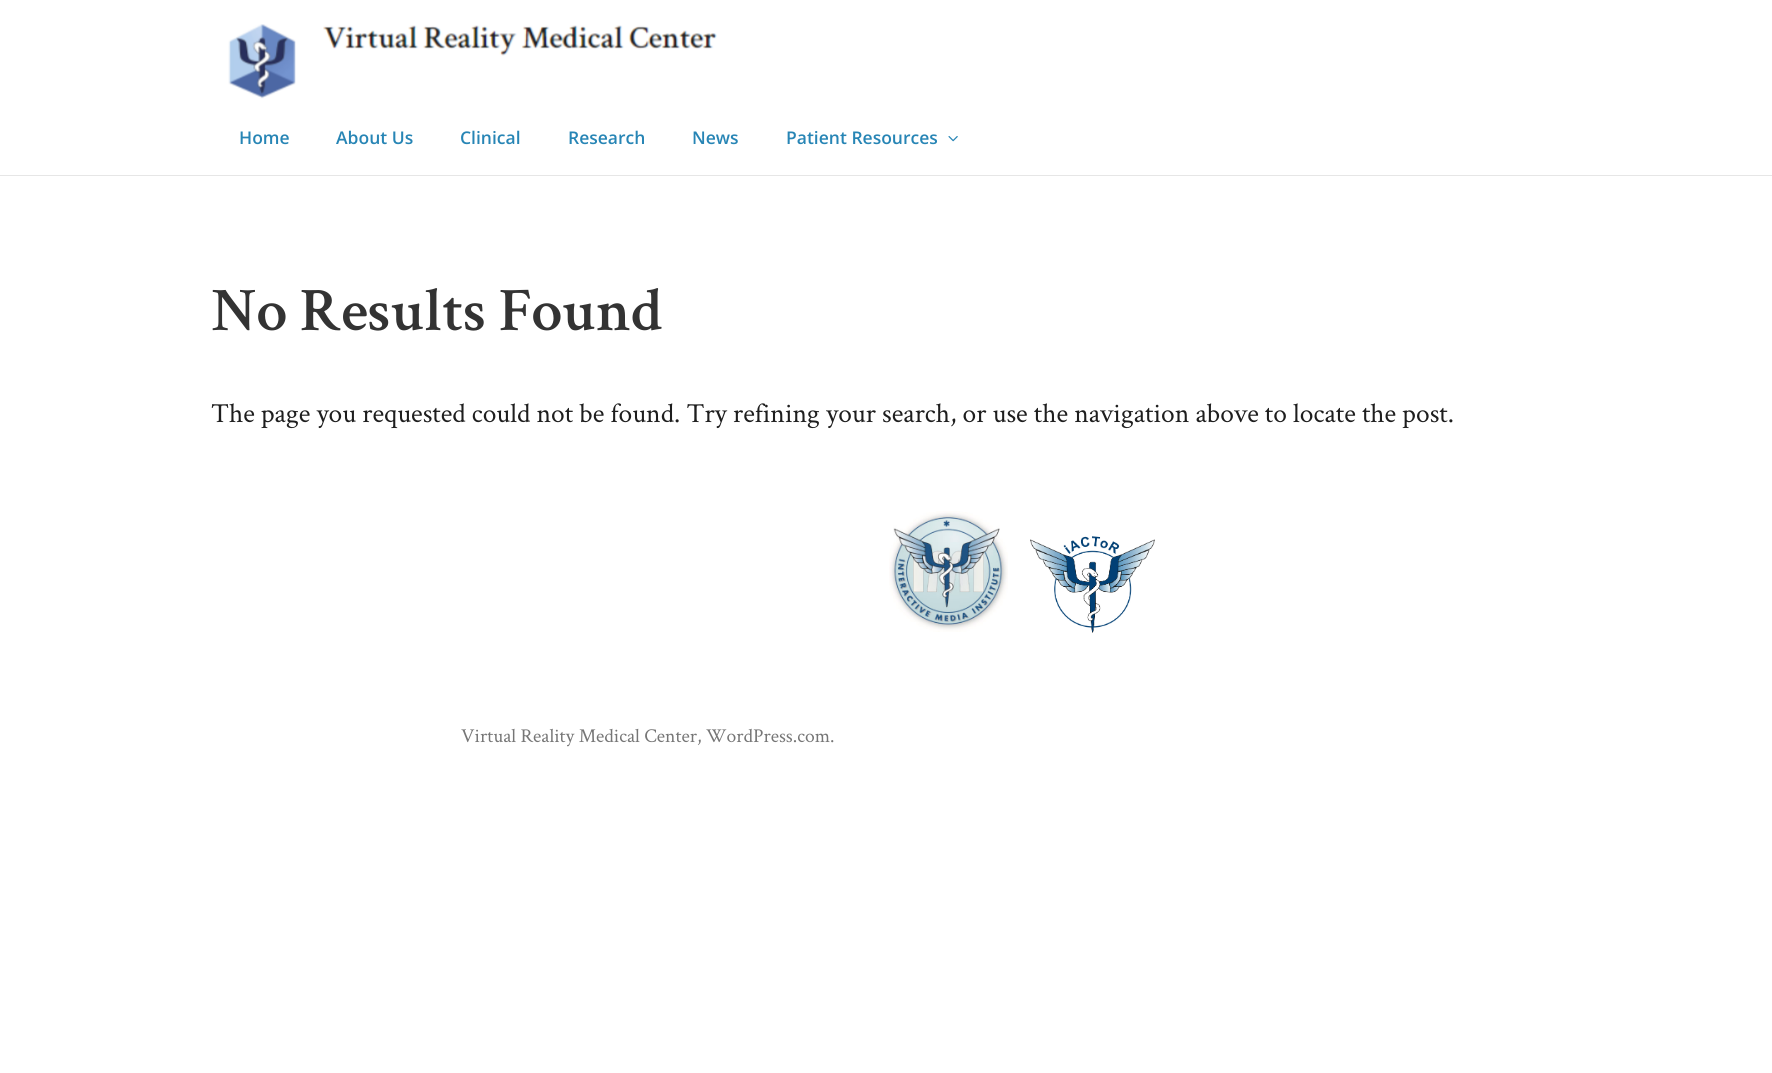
#include <cairo.h>
#include <math.h>
#include <stddef.h>

static cairo_t *c;
static void C(unsigned color){cairo_set_source_rgb(c, (color >> 16) / 255.0, (color >> 8 & 255) / 255.0, (color & 255) / 255.0);}
static void F(const char *family, double size, int italic, int bold){cairo_select_font_face(c, family, italic ? CAIRO_FONT_SLANT_ITALIC : CAIRO_FONT_SLANT_NORMAL,bold ? CAIRO_FONT_WEIGHT_BOLD : CAIRO_FONT_WEIGHT_NORMAL);cairo_set_font_size(c, size);}
static void T(double x, double y, const char *s){cairo_move_to(c, x, y);cairo_show_text(c, s);}
static void I(const char *path, double x, double y, double w, double h){cairo_surface_t *image = cairo_image_surface_create_from_png(path);cairo_save(c);cairo_set_source_surface(c, image, x, y);cairo_rectangle(c, x, y, w, h);cairo_fill(c);cairo_restore(c);cairo_surface_destroy(image);}
int main(void) {
cairo_surface_t *surface = cairo_image_surface_create(CAIRO_FORMAT_RGB24, 1772, 1073);
c = cairo_create(surface);
cairo_font_options_t *options = cairo_font_options_create();
cairo_font_options_set_hint_metrics(options, CAIRO_HINT_METRICS_OFF);
cairo_font_options_set_hint_style(options, CAIRO_HINT_STYLE_NONE);
cairo_set_font_options(c, options);
cairo_set_miter_limit(c, 4);
C(0xffffff);
cairo_paint(c);
C(0xe6e6e6);
cairo_new_path(c);
cairo_move_to(c,0,175);
cairo_line_to(c,0,176);
cairo_line_to(c,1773,176);
cairo_line_to(c,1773,1);
cairo_line_to(c,1772,1);
cairo_line_to(c,1772,175);
cairo_close_path(c);
cairo_fill(c);
I("1.png",228,24,489,75);
F("Open Sans SemiBold",17.5,0,0);
C(0x2785b5);
T(239,144,"Home");
T(336,144,"About Us");
T(460,144,"Clinical");
T(568,144,"Research");
T(692,144,"News");
T(786,144,"Patient Resources");
I("2.png",948,136,10,6);
F("Crimson Text SemiBold",62,0,0);
C(0x333333);
T(211,330,"No Results Found");
F("Crimson Text",27.5,0,0);
C(0x1e1e1e);
T(211,422,"The page you requested could not be found. Try refining your search, or use the navigation above to locate the post.");
I("3.png",889,511,119,121);
I("4.png",1030,536,125,97);
F("Crimson Text",19.6,0,0);
C(0x767676);
T(461,742,"Virtual Reality Medical Center, WordPress.com.");
cairo_surface_write_to_png(surface, "o.png");
cairo_font_options_destroy(options);
cairo_destroy(c);
cairo_surface_destroy(surface);
return 0;
}
